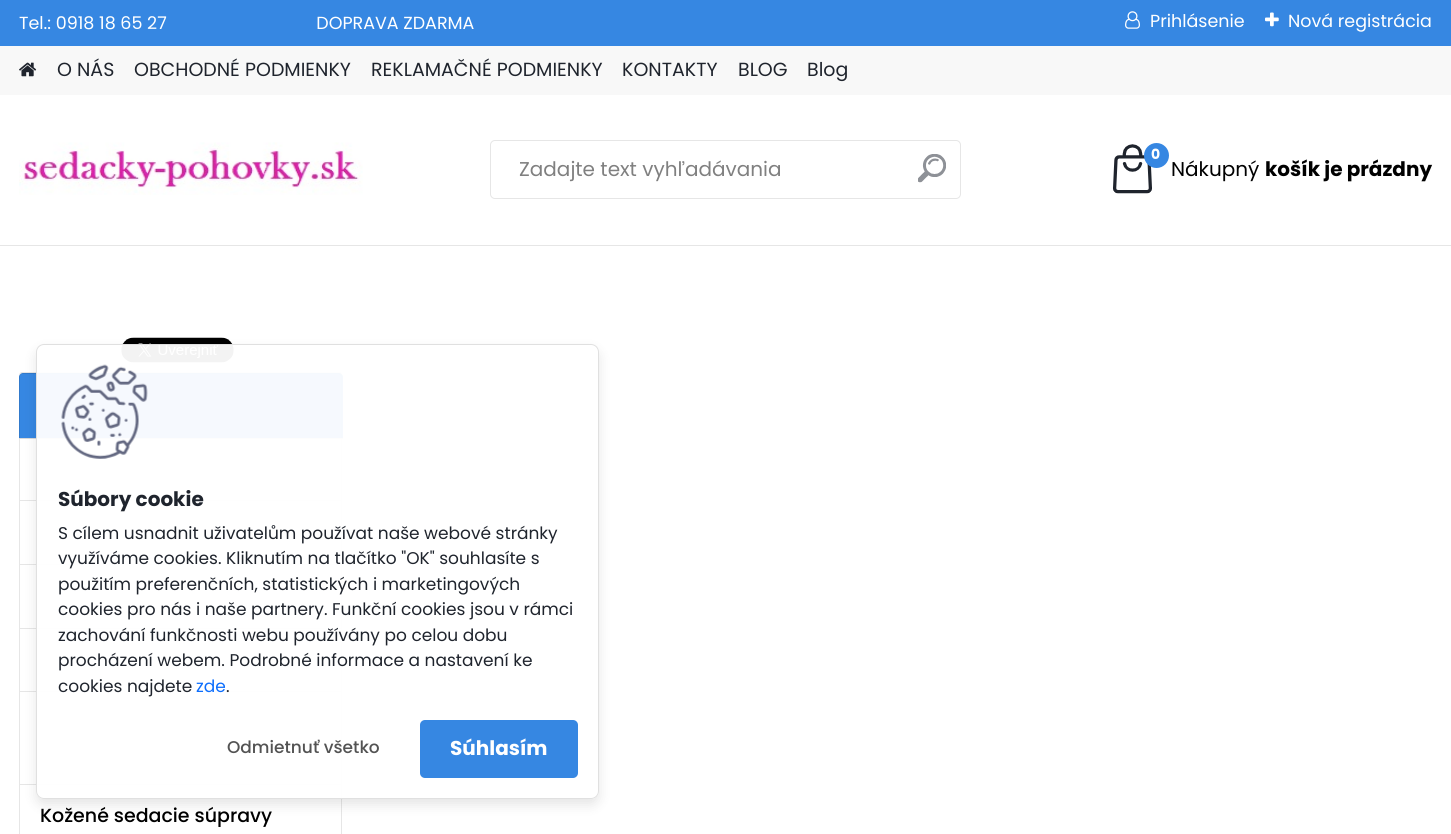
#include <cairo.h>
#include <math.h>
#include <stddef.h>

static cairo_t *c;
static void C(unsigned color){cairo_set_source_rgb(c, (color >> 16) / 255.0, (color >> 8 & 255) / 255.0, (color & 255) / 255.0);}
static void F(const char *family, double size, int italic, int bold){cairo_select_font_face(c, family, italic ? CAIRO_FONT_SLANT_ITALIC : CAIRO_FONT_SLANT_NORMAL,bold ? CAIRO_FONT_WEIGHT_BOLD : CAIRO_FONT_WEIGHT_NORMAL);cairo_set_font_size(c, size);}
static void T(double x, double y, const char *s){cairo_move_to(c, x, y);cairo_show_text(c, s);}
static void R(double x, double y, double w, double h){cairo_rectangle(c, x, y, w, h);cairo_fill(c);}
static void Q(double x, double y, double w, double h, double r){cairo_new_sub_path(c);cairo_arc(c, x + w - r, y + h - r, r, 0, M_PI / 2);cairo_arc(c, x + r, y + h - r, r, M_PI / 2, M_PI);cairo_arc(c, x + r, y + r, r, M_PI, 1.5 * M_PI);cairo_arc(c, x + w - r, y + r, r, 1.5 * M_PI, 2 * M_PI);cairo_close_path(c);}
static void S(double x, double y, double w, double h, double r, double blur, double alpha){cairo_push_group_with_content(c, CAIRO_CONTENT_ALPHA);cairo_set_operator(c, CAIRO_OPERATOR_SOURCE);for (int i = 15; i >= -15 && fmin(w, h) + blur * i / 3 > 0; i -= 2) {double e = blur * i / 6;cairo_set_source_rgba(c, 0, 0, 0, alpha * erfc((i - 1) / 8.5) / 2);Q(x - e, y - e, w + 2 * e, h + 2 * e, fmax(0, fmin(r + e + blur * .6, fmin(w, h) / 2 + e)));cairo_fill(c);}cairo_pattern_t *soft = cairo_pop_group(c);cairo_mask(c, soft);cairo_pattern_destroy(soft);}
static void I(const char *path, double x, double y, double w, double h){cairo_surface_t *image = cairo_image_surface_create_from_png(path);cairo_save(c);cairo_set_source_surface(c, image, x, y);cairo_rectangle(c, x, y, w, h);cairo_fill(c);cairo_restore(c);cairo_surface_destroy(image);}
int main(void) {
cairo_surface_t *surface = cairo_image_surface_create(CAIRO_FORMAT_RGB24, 1451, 834);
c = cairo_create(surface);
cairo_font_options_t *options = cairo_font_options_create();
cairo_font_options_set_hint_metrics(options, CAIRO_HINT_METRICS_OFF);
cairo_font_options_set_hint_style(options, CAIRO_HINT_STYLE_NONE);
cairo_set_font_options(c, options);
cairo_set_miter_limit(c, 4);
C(0xffffff);
cairo_paint(c);
C(0x3687e2);
R(0,0,1451,46);
F("Poppins",17.5,0,0);
C(0xffffff);
T(19,29,"Tel.: 0918 18 65 27                                DOPRAVA ZDARMA");
I("1.png",1125,11,15,18);
T(1150,27,"Prihlásenie");
I("2.png",1265,12,14,15);
T(1288,27,"Nová registrácia");
C(0xe6e6e6);
R(0,245,1451,1);
C(0xf8f8f8);
R(0,46,1451,49);
I("3.png",19,62,18,15);
F("Poppins",19,0,0);
C(0x1f242d);
T(57,76,"O NÁS");
T(134,76,"OBCHODNÉ PODMIENKY");
T(371,76,"REKLAMAČNÉ PODMIENKY");
T(622,76,"KONTAKTY");
T(738,76,"BLOG");
T(807,76,"Blog");
I("4.png",19,142,344,53);
Q(490.5,140.5,470,58,4.5);
C(0xe6e6e6);
cairo_set_line_width(c,1);
cairo_stroke(c);
F("Poppins",20,0,0);
C(0x808080);
T(519,176,"Zadajte text vyhľadávania");
I("5.png",918,154,28,29);
I("6.png",1113,144,39,50);
C(0x3687e2);
cairo_arc(c,1156.5,155.5,12.5,0,2 * M_PI);
cairo_fill(c);
F("Poppins",14,0,1);
C(0xffffff);
T(1151,159,"0");
F("Poppins",20,0,0);
C(0x000000);
T(1171,176,"Nákupný");
F("Poppins",20,0,1);
T(1265,176,"košík je prázdny");
I("7.png",121,337,113,26);
C(0xe6e6e6);
cairo_new_path(c);
cairo_move_to(c,342,438);
cairo_line_to(c,342,501);
cairo_line_to(c,341,500);
cairo_line_to(c,341,438);
cairo_close_path(c);
cairo_fill(c);
cairo_set_source_rgba(c,0,0,0,0.1);
cairo_new_path(c);
cairo_move_to(c,342,501);
cairo_line_to(c,19,501);
cairo_line_to(c,20,500);
cairo_line_to(c,341,500);
cairo_close_path(c);
cairo_fill(c);
cairo_new_path(c);
cairo_move_to(c,19,501);
cairo_line_to(c,19,438);
cairo_line_to(c,20,438);
cairo_line_to(c,20,500);
cairo_close_path(c);
cairo_fill(c);
C(0xd9d9d9);
cairo_new_path(c);
cairo_move_to(c,19,438);
cairo_line_to(c,19,439);
cairo_line_to(c,343,439);
cairo_line_to(c,343,378);
cairo_line_to(c,342,376);
cairo_line_to(c,342,438);
cairo_close_path(c);
cairo_fill(c);
C(0x3687e2);
cairo_new_path(c);
cairo_move_to(c,23,373);
cairo_line_to(c,339,373);
cairo_curve_to(c,341,373,343,375,343,377);
cairo_line_to(c,343,438);
cairo_line_to(c,19,438);
cairo_line_to(c,19,377);
cairo_curve_to(c,19,375,21,373,23,373);
cairo_close_path(c);
cairo_fill(c);
cairo_set_source_rgba(c,0,0,0,0.1);
cairo_set_fill_rule(c,CAIRO_FILL_RULE_EVEN_ODD);
cairo_new_path(c);
cairo_move_to(c,22,372);
cairo_line_to(c,339,372);
cairo_curve_to(c,341,372,342,374,342,376);
cairo_line_to(c,342,438);
cairo_line_to(c,19,438);
cairo_line_to(c,19,376);
cairo_curve_to(c,19,374,20,372,22,372);
cairo_close_path(c);
cairo_move_to(c,22,374);
cairo_line_to(c,339,374);
cairo_curve_to(c,340,374,341,375,341,376);
cairo_line_to(c,341,438);
cairo_line_to(c,20,438);
cairo_line_to(c,20,376);
cairo_curve_to(c,20,375,21,374,22,374);
cairo_close_path(c);
cairo_fill(c);
C(0xe6e6e6);
cairo_set_fill_rule(c,CAIRO_FILL_RULE_WINDING);
cairo_new_path(c);
cairo_move_to(c,342,501);
cairo_line_to(c,342,565);
cairo_line_to(c,341,564);
cairo_line_to(c,341,501);
cairo_close_path(c);
cairo_fill(c);
cairo_set_source_rgba(c,0,0,0,0.1);
cairo_new_path(c);
cairo_move_to(c,342,565);
cairo_line_to(c,19,565);
cairo_line_to(c,20,564);
cairo_line_to(c,341,564);
cairo_close_path(c);
cairo_fill(c);
cairo_new_path(c);
cairo_move_to(c,19,565);
cairo_line_to(c,19,501);
cairo_line_to(c,20,501);
cairo_line_to(c,20,564);
cairo_close_path(c);
cairo_fill(c);
C(0xe6e6e6);
cairo_new_path(c);
cairo_move_to(c,342,565);
cairo_line_to(c,342,629);
cairo_line_to(c,341,628);
cairo_line_to(c,341,565);
cairo_close_path(c);
cairo_fill(c);
cairo_set_source_rgba(c,0,0,0,0.1);
cairo_new_path(c);
cairo_move_to(c,342,629);
cairo_line_to(c,19,629);
cairo_line_to(c,20,628);
cairo_line_to(c,341,628);
cairo_close_path(c);
cairo_fill(c);
cairo_new_path(c);
cairo_move_to(c,19,629);
cairo_line_to(c,19,565);
cairo_line_to(c,20,565);
cairo_line_to(c,20,628);
cairo_close_path(c);
cairo_fill(c);
C(0xe6e6e6);
cairo_new_path(c);
cairo_move_to(c,342,629);
cairo_line_to(c,342,692);
cairo_line_to(c,341,691);
cairo_line_to(c,341,629);
cairo_close_path(c);
cairo_fill(c);
cairo_set_source_rgba(c,0,0,0,0.1);
cairo_new_path(c);
cairo_move_to(c,342,692);
cairo_line_to(c,19,692);
cairo_line_to(c,20,691);
cairo_line_to(c,341,691);
cairo_close_path(c);
cairo_fill(c);
cairo_new_path(c);
cairo_move_to(c,19,692);
cairo_line_to(c,19,629);
cairo_line_to(c,20,629);
cairo_line_to(c,20,691);
cairo_close_path(c);
cairo_fill(c);
C(0xe6e6e6);
cairo_new_path(c);
cairo_move_to(c,342,692);
cairo_line_to(c,342,785);
cairo_line_to(c,341,784);
cairo_line_to(c,341,692);
cairo_close_path(c);
cairo_fill(c);
cairo_set_source_rgba(c,0,0,0,0.1);
cairo_new_path(c);
cairo_move_to(c,342,785);
cairo_line_to(c,19,785);
cairo_line_to(c,20,784);
cairo_line_to(c,341,784);
cairo_close_path(c);
cairo_fill(c);
cairo_new_path(c);
cairo_move_to(c,19,785);
cairo_line_to(c,19,692);
cairo_line_to(c,20,692);
cairo_line_to(c,20,784);
cairo_close_path(c);
cairo_fill(c);
C(0xe6e6e6);
cairo_new_path(c);
cairo_move_to(c,342,785);
cairo_line_to(c,342,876);
cairo_line_to(c,341,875);
cairo_line_to(c,341,785);
cairo_close_path(c);
cairo_fill(c);
cairo_new_path(c);
cairo_move_to(c,19,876);
cairo_line_to(c,19,785);
cairo_line_to(c,20,785);
cairo_line_to(c,20,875);
cairo_close_path(c);
cairo_fill(c);
F("Poppins Medium",19,0,0);
C(0x000000);
T(40,822,"Kožené sedacie súpravy");
cairo_save(c);
cairo_set_fill_rule(c,CAIRO_FILL_RULE_EVEN_ODD);
cairo_new_path(c);
cairo_move_to(c,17,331);
cairo_line_to(c,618,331);
cairo_line_to(c,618,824);
cairo_line_to(c,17,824);
cairo_close_path(c);
cairo_move_to(c,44,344);
cairo_line_to(c,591,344);
cairo_curve_to(c,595.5,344,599,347.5,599,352);
cairo_line_to(c,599,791);
cairo_curve_to(c,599,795.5,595.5,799,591,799);
cairo_line_to(c,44,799);
cairo_curve_to(c,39.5,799,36,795.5,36,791);
cairo_line_to(c,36,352);
cairo_curve_to(c,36,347.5,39.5,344,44,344);
cairo_close_path(c);
cairo_clip(c);
C(0x000000);
S(36,350,563,455,8,6,.1);
cairo_restore(c);
cairo_set_source_rgba(c,1,1,1,0.95);
Q(36.5,344.5,562,454,7.5);
cairo_fill_preserve(c);
C(0xe0e0e0);
cairo_stroke(c);
I("8.png",61,364,87,95);
F("Poppins",20,0,1);
C(0x1f242d);
T(58,506,"Súbory cookie");
F("Poppins",17,0,0);
T(58,539,"S cílem usnadnit uživatelům používat naše webové stránky");
T(58,564,"využíváme cookies. Kliknutím na tlačítko \"OK\" souhlasíte s");
T(58,590,"použitím preferenčních, statistických i marketingových");
T(58,615,"cookies pro nás i naše partnery. Funkční cookies jsou v rámci");
T(58,641,"zachování funkčnosti webu používány po celou dobu");
T(58,666,"procházení webem. Podrobné informace a nastavení ke");
T(58,692,"cookies najdete");
C(0x0d6efd);
T(196,692,"zde");
C(0x1f242d);
T(226,692,".");
F("Poppins Medium",17,0,0);
C(0x535353);
T(227,753,"Odmietnuť všetko");
C(0x3687e2);
Q(420,720,158,58,5);
cairo_fill(c);
F("Poppins",20,0,1);
C(0xffffff);
T(450,755,"Súhlasím");
cairo_surface_write_to_png(surface, "o.png");
cairo_font_options_destroy(options);
cairo_destroy(c);
cairo_surface_destroy(surface);
return 0;
}
